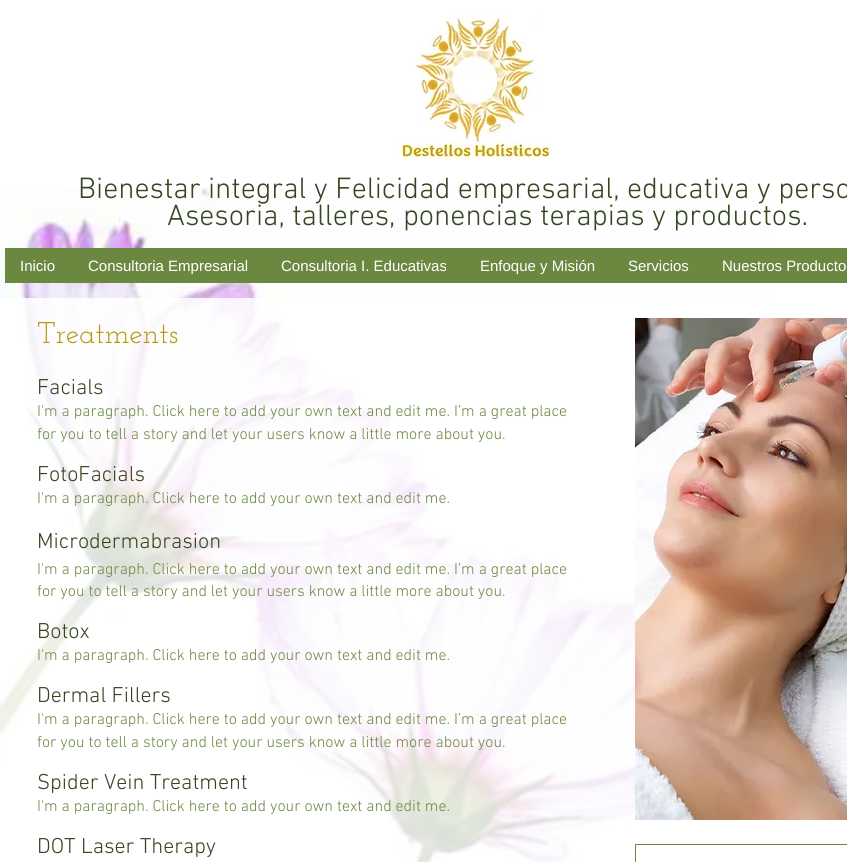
#include <cairo.h>
#include <math.h>
#include <stddef.h>

static cairo_t *c;
static void C(unsigned color){cairo_set_source_rgb(c, (color >> 16) / 255.0, (color >> 8 & 255) / 255.0, (color & 255) / 255.0);}
static void F(const char *family, double size, int italic, int bold){cairo_select_font_face(c, family, italic ? CAIRO_FONT_SLANT_ITALIC : CAIRO_FONT_SLANT_NORMAL,bold ? CAIRO_FONT_WEIGHT_BOLD : CAIRO_FONT_WEIGHT_NORMAL);cairo_set_font_size(c, size);}
static void T(double x, double y, const char *s){cairo_move_to(c, x, y);cairo_show_text(c, s);}
static void R(double x, double y, double w, double h){cairo_rectangle(c, x, y, w, h);cairo_fill(c);}
static void I(const char *path, double x, double y, double w, double h){cairo_surface_t *image = cairo_image_surface_create_from_png(path);cairo_save(c);cairo_set_source_surface(c, image, x, y);cairo_rectangle(c, x, y, w, h);cairo_fill(c);cairo_restore(c);cairo_surface_destroy(image);}
int main(void) {
cairo_surface_t *surface = cairo_image_surface_create(CAIRO_FORMAT_RGB24, 847, 862);
c = cairo_create(surface);
cairo_font_options_t *options = cairo_font_options_create();
cairo_font_options_set_hint_metrics(options, CAIRO_HINT_METRICS_OFF);
cairo_font_options_set_hint_style(options, CAIRO_HINT_STYLE_NONE);
cairo_set_font_options(c, options);
cairo_set_miter_limit(c, 4);
C(0xffffff);
cairo_paint(c);
I("1.png",397,14,153,144);
I("3.png",0,187,774,675);
F("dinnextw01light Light",30,0,0);
C(0x354421);
T(78,198,"Bienestar integral y Felicidad empresarial, educativa y perso");
T(167,225,"Asesoria, talleres, ponencias terapias y productos.");
C(0x6b8841);
R(5,248,842,35);
F("Liberation Sans",15,0,0);
C(0xffffff);
T(20,271,"Inicio");
T(88,271,"Consultoria Empresarial");
T(281,271,"Consultoria I. Educativas");
T(480,271,"Enfoque y Misión");
T(628,271,"Servicios");
T(722,271,"Nuestros Producto");
cairo_set_source_rgba(c,1,1,1,0.85);
R(0,298,774,564);
F("Josefin Slab",30,0,0);
C(0xb89710);
T(37,343,"Treatments");
I("2.png",635,318,212,502);
F("dinnextw01light Light",22,0,0);
C(0x354421);
T(37,394,"Facials");
F("dinnextw01light Light",16,0,0);
C(0x6b8841);
T(37,416,"I'm a paragraph. Click here to add your own text and edit me. I’m a great place");
T(37,439,"for you to tell a story and let your users know a little more about you.");
F("dinnextw01light Light",22,0,0);
C(0x354421);
T(37,481,"FotoFacials");
F("dinnextw01light Light",16,0,0);
C(0x6b8841);
T(37,503,"I'm a paragraph. Click here to add your own text and edit me.");
F("dinnextw01light Light",22,0,0);
C(0x354421);
T(37,548,"Microdermabrasion");
F("dinnextw01light Light",16,0,0);
C(0x6b8841);
T(37,574,"I'm a paragraph. Click here to add your own text and edit me. I’m a great place");
T(37,596,"for you to tell a story and let your users know a little more about you.");
F("dinnextw01light Light",22,0,0);
C(0x354421);
T(37,638,"Botox");
F("dinnextw01light Light",16,0,0);
C(0x6b8841);
T(37,660,"I'm a paragraph. Click here to add your own text and edit me.");
F("dinnextw01light Light",22,0,0);
C(0x354421);
T(37,702,"Dermal Fillers");
F("dinnextw01light Light",16,0,0);
C(0x6b8841);
T(37,724,"I'm a paragraph. Click here to add your own text and edit me. I’m a great place");
T(37,747,"for you to tell a story and let your users know a little more about you.");
F("dinnextw01light Light",22,0,0);
C(0x354421);
T(37,789,"Spider Vein Treatment");
F("dinnextw01light Light",16,0,0);
C(0x6b8841);
T(37,811,"I'm a paragraph. Click here to add your own text and edit me.");
F("dinnextw01light Light",22,0,0);
C(0x354421);
T(37,853,"DOT Laser Therapy");
cairo_rectangle(c,635.5,844.5,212,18);
C(0x6b8841);
cairo_set_line_width(c,1);
cairo_stroke(c);
cairo_surface_write_to_png(surface, "o.png");
cairo_font_options_destroy(options);
cairo_destroy(c);
cairo_surface_destroy(surface);
return 0;
}
